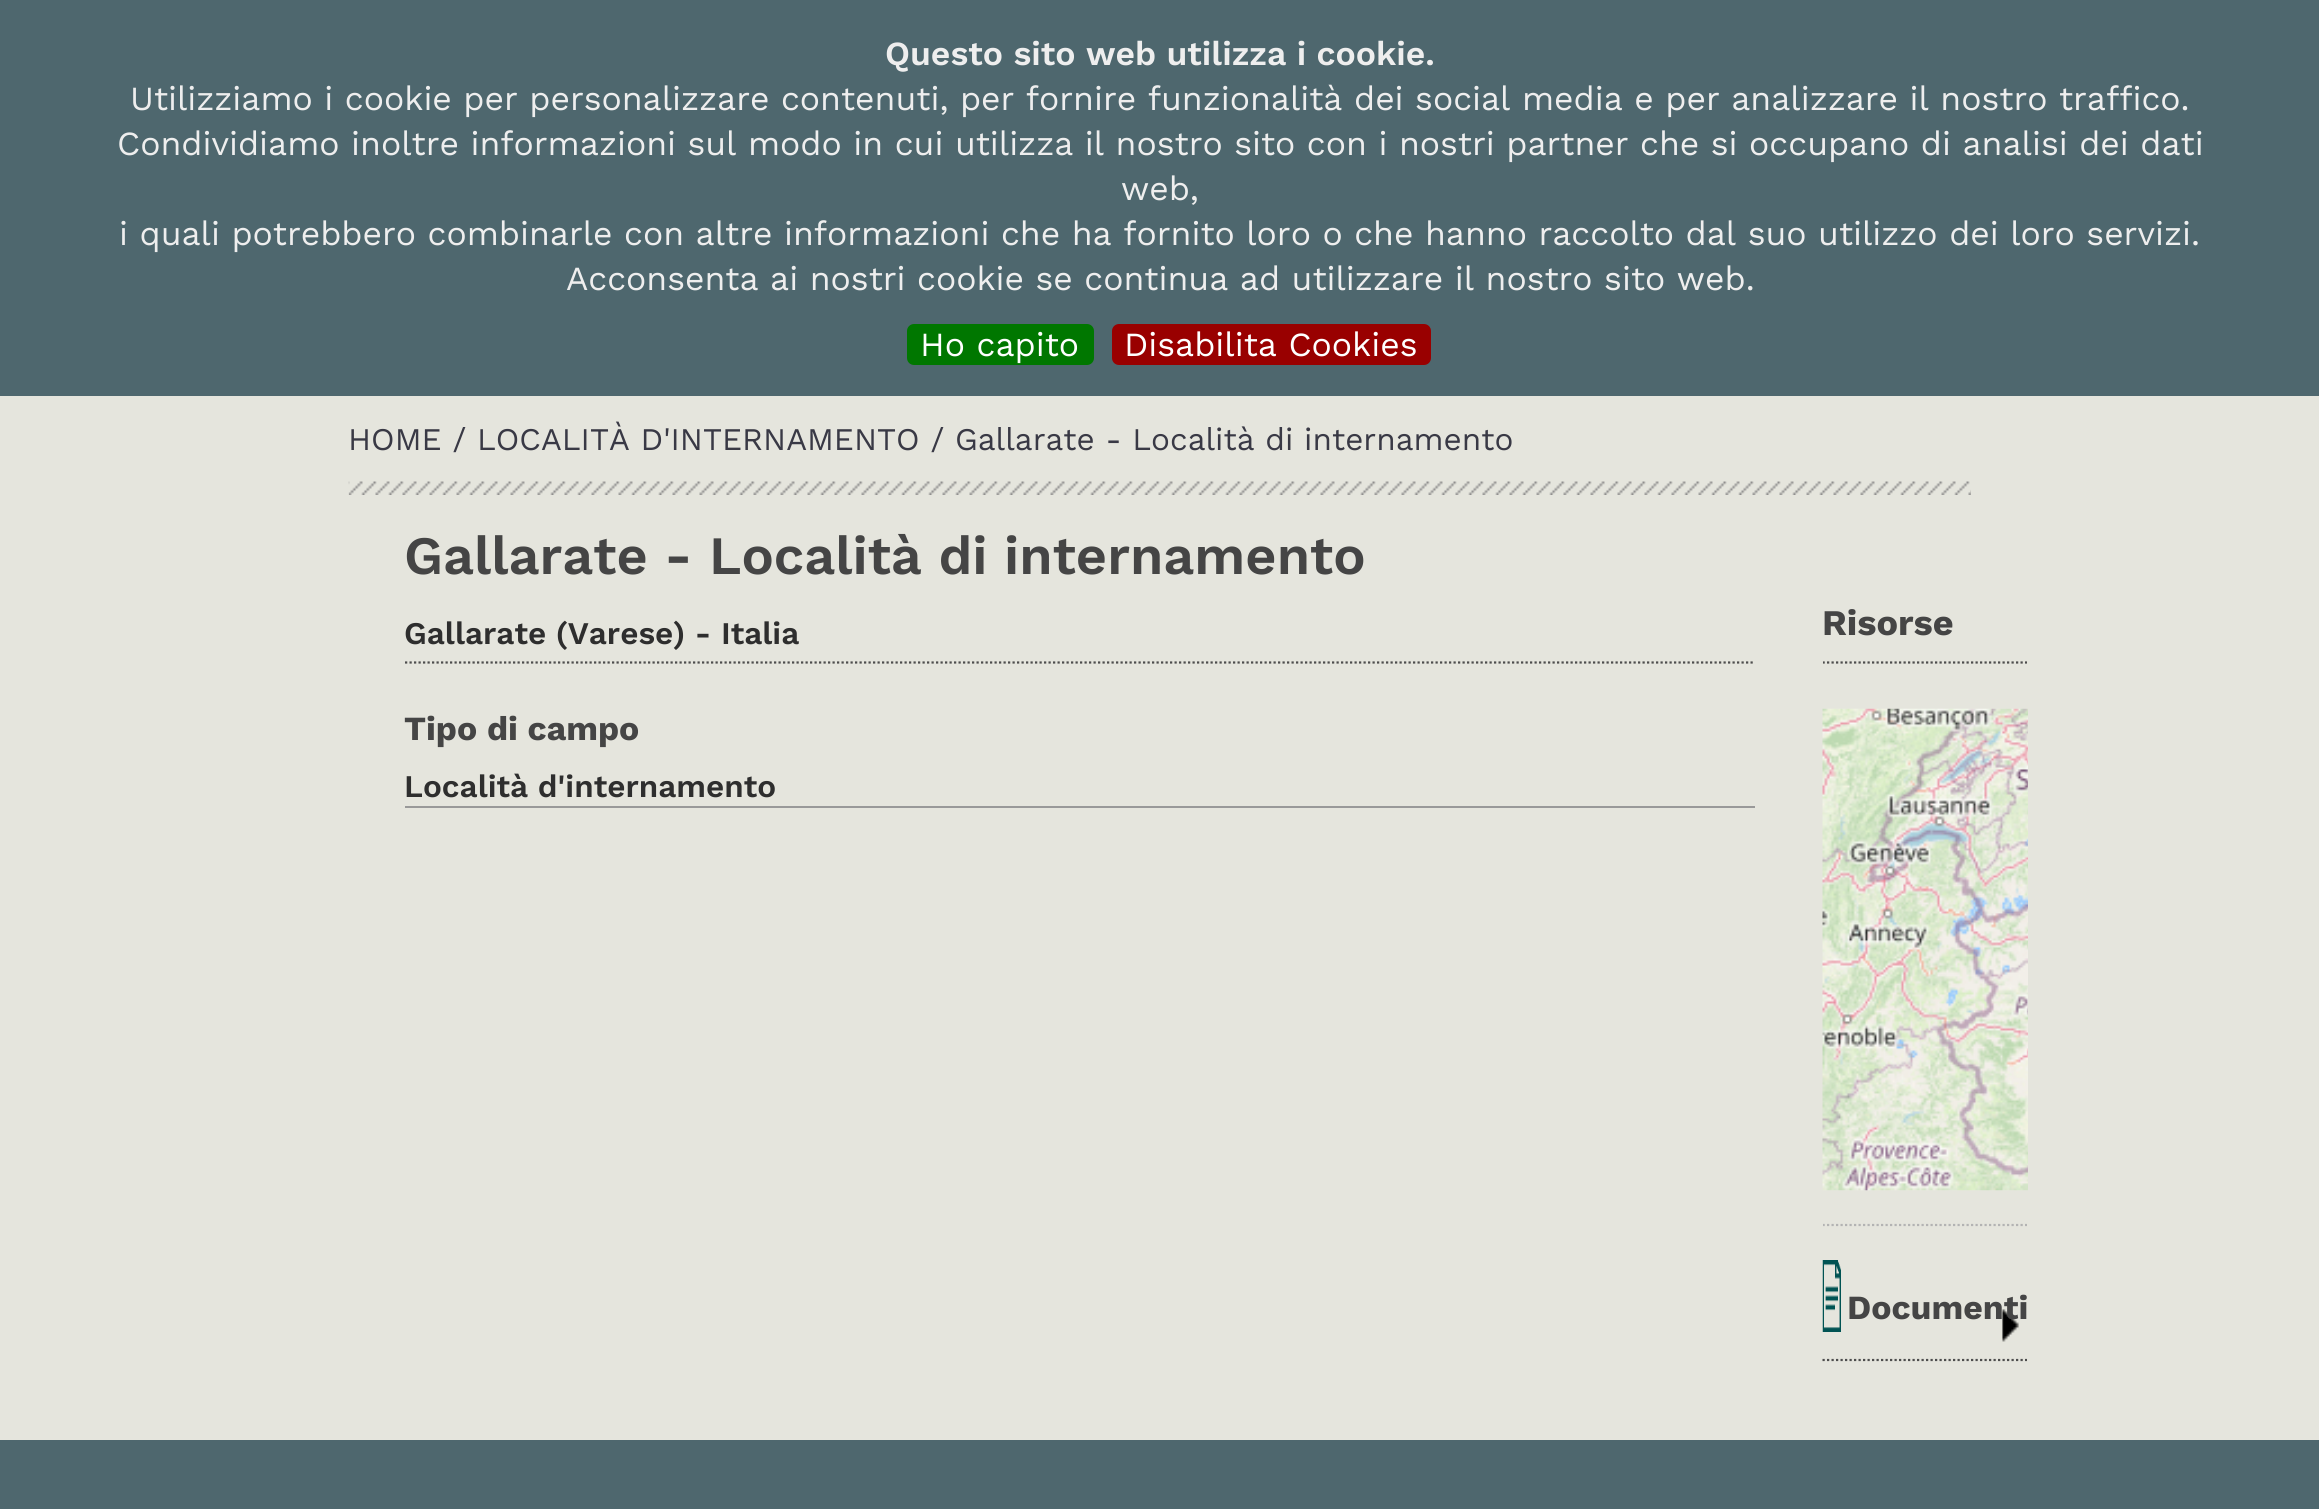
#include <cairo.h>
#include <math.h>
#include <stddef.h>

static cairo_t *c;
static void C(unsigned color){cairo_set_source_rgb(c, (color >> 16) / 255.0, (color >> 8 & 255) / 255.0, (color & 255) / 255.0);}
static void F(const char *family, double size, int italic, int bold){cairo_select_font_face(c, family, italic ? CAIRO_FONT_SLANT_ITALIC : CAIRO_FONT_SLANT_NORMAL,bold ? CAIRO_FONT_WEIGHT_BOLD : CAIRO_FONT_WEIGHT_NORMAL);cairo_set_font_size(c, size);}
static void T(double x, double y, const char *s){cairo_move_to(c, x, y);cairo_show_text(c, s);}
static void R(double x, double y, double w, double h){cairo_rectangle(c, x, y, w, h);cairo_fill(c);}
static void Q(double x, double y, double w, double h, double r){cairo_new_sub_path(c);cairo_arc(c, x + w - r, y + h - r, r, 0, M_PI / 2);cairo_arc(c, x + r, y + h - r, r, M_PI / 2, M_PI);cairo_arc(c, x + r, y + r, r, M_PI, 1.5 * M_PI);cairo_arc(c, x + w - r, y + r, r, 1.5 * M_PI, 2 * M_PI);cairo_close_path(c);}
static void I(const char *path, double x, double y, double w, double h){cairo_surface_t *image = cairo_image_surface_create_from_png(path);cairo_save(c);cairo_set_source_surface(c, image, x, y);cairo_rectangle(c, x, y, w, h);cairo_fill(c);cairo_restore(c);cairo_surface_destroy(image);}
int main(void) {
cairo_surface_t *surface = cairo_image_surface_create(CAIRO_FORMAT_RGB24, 2319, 1509);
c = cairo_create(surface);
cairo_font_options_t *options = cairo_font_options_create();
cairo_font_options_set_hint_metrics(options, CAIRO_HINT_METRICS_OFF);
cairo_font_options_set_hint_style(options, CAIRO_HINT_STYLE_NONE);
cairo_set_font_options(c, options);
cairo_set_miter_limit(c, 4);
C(0xe5e5dd);
cairo_paint(c);
C(0x4e676e);
R(0,0,2319,396);
F("Work Sans SemiBold",33.75,0,0);
C(0xeeeeee);
T(885,65,"Questo sito web utilizza i cookie.");
F("Work Sans",33.75,0,0);
T(130,110,"Utilizziamo i cookie per personalizzare contenuti, per fornire funzionalità dei social media e per analizzare il nostro traffico.");
T(117,155,"Condividiamo inoltre informazioni sul modo in cui utilizza il nostro sito con i nostri partner che si occupano di analisi dei dati");
T(1121,200,"web,");
T(119,245,"i quali potrebbero combinarle con altre informazioni che ha fornito loro o che hanno raccolto dal suo utilizzo dei loro servizi.");
T(566,290,"Acconsenta ai nostri cookie se continua ad utilizzare il nostro sito web.");
C(0x007700);
Q(907,324,187,41,7);
cairo_fill(c);
C(0xffffff);
T(920,356,"Ho capito");
C(0x990000);
Q(1112,324,319,41,7);
cairo_fill(c);
C(0xffffff);
T(1124,356,"Disabilita Cookies");
I("1.png",348,481,1623,14);
F("Work Sans",31.5,0,0);
C(0x393945);
T(348,450,"HOME / LOCALITÀ D'INTERNAMENTO / Gallarate - Località di internamento");
cairo_new_path(c);
cairo_move_to(c,405,662.5);
cairo_line_to(c,1755,662.5);
C(0x4d4d4d);
cairo_set_line_width(c,2.2);
cairo_set_dash(c,(double[]){2.25,2.25},2,0);
cairo_stroke(c);
F("Work Sans SemiBold",54,0,0);
C(0x454545);
T(404,574,"Gallarate - Località di internamento");
F("Work Sans SemiBold",31.5,0,0);
C(0x2e2e2e);
T(404,644,"Gallarate (Varese) - Italia");
C(0x999999);
R(405,806,1350,2);
F("Work Sans",33.75,0,1);
C(0x454545);
T(404,740,"Tipo di campo");
F("Work Sans SemiBold",31.5,0,0);
C(0x2e2e2e);
T(404,797,"Località d'internamento");
cairo_save(c);
cairo_rectangle(c,1823,529,204,855);
cairo_clip(c);
cairo_new_path(c);
cairo_move_to(c,1822.5,662.5);
cairo_line_to(c,2027,662.5);
C(0x4d4d4d);
cairo_stroke(c);
cairo_restore(c);
F("Work Sans",36,0,1);
C(0x454545);
T(1822,635,"Risorse");
cairo_save(c);
cairo_rectangle(c,1823,529,204,855);
cairo_clip(c);
cairo_new_path(c);
cairo_move_to(c,1822.5,1225);
cairo_line_to(c,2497.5,1225);
C(0xb3b3b3);
cairo_stroke(c);
cairo_restore(c);
I("2.png",1822,708,206,483);
cairo_new_path(c);
cairo_move_to(c,1822.5,1360);
cairo_line_to(c,2027,1360);
C(0x4d4d4d);
cairo_stroke(c);
I("3.png",1822,1260,19,72);
I("4.png",2002,1309,17,33);
F("Work Sans",33.75,0,1);
C(0x454545);
T(1847,1319,"Documenti");
C(0x4e676e);
R(0,1440,2319,69);
cairo_surface_write_to_png(surface, "o.png");
cairo_font_options_destroy(options);
cairo_destroy(c);
cairo_surface_destroy(surface);
return 0;
}
